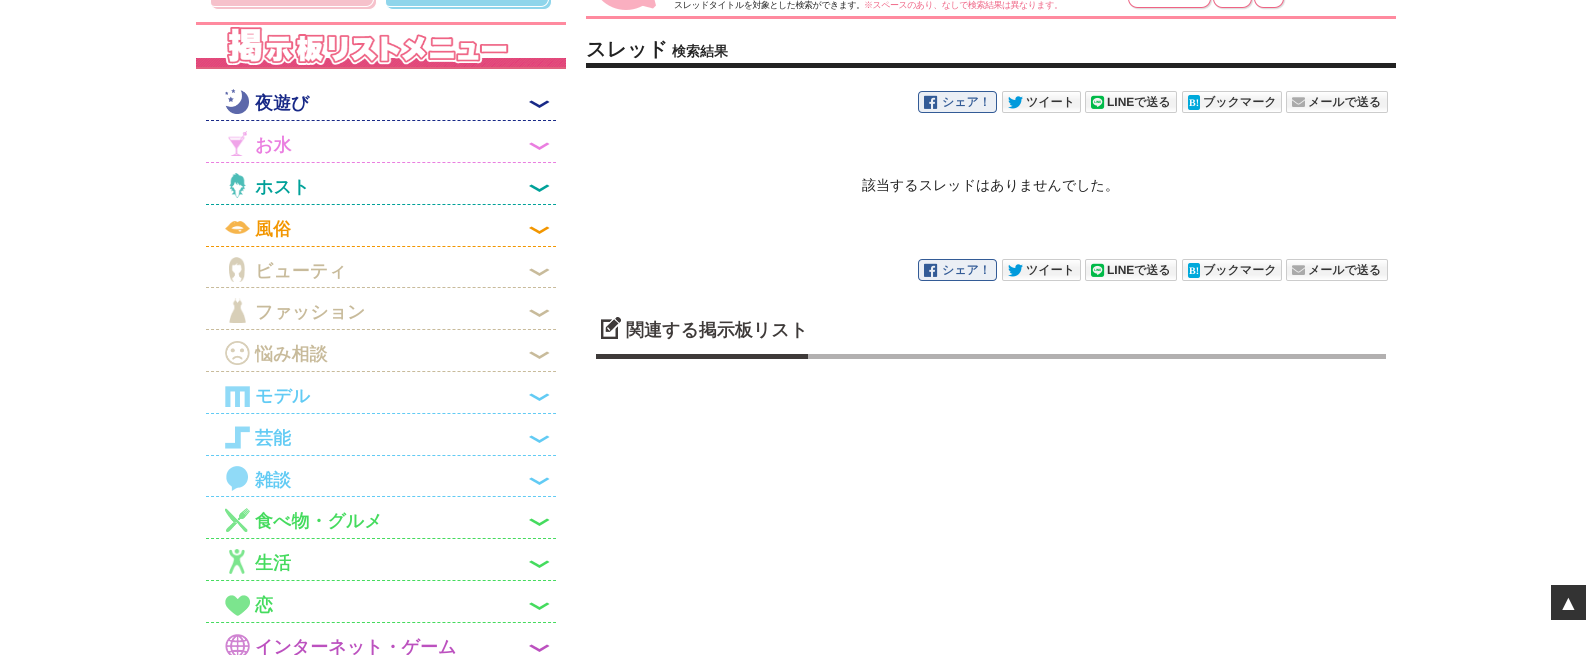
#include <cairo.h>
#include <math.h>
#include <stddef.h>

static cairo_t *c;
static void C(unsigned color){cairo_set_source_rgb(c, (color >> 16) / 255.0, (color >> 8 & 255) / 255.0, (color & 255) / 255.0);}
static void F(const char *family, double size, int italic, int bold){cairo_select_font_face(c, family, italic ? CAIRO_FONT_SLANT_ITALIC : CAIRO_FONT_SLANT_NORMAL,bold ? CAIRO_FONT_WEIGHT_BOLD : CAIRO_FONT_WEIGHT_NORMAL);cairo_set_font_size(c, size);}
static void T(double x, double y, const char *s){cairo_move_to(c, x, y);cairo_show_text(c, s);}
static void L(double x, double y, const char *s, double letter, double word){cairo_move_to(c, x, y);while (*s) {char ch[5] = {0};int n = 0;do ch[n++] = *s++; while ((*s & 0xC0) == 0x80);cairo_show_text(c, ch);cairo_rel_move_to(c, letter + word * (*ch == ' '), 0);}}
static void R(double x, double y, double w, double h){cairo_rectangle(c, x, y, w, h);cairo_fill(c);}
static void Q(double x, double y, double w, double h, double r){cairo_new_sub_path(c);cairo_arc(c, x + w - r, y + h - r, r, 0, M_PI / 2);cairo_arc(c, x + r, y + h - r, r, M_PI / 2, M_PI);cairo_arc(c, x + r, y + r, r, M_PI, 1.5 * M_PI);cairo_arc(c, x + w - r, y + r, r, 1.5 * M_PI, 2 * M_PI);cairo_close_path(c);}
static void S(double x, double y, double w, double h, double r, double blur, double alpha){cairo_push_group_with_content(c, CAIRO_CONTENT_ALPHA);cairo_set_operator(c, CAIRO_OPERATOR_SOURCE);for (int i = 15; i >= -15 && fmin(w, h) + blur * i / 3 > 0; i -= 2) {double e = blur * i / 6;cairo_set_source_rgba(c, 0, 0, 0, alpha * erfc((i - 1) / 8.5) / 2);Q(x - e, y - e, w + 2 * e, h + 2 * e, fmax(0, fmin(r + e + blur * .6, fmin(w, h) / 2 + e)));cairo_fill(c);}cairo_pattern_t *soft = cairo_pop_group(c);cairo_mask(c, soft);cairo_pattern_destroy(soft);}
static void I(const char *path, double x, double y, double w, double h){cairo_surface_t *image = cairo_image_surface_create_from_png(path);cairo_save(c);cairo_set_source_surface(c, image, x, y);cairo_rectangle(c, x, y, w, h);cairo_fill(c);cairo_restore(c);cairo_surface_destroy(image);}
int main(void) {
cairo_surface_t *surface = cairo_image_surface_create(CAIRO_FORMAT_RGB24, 1591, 655);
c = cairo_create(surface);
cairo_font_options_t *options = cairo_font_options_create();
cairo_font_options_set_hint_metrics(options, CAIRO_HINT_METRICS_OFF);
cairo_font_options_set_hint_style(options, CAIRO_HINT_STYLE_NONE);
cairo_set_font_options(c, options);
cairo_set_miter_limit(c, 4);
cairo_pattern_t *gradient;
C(0xffffff);
cairo_paint(c);
C(0xff8a9f);
R(196,22,370,3);
C(0xf6c1cb);
Q(210.5,-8.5,166,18,7.5);
cairo_fill_preserve(c);
C(0xffffff);
cairo_set_line_width(c,1);
cairo_stroke(c);
Q(207.5,-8.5,166,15,7.5);
cairo_stroke(c);
C(0x8fd5eb);
Q(385.5,-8.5,166,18,7.5);
cairo_fill_preserve(c);
C(0xffffff);
cairo_stroke(c);
Q(382.5,-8.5,166,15,7.5);
cairo_stroke(c);
C(0xff8a9f);
R(586,16,810,3);
C(0xfaafc0);
Q(591,-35,70,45,35);
cairo_fill(c);
cairo_new_path(c);
cairo_move_to(c,652.5,-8);
cairo_line_to(c,656,5.5);
cairo_line_to(c,653,8.5);
cairo_line_to(c,639.5,5);
cairo_curve_to(c,639.5,3,644.5,-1,645.5,-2);
cairo_curve_to(c,646.5,-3,650.5,-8,652.5,-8);
cairo_close_path(c);
cairo_fill(c);
F("WenQuanYi Zen Hei Medium",9,0,0);
C(0x222222);
L(674,8,"スレッドタイトルを対象とした検索ができます。",-.5,0);
C(0xef6384);
L(864,8,"※スペースのあり、なしで検索結果は異なります。",-.5,0);
C(0x000000);
S(1129,-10,83,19,9.5,.5,.15);
C(0xffffff);
Q(1128.5,-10.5,82,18,9);
cairo_fill_preserve(c);
C(0xef6384);
cairo_stroke(c);
C(0x000000);
S(1214,-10,39,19,9.5,.5,.15);
C(0xffffff);
Q(1213.5,-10.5,38,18,9);
cairo_fill_preserve(c);
C(0xef6384);
cairo_stroke(c);
C(0x000000);
S(1255,-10,30,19,9.5,.5,.15);
C(0xffffff);
Q(1254.5,-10.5,29,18,9);
cairo_fill_preserve(c);
C(0xef6384);
cairo_stroke(c);
I("1.png",196,58,370,9);
C(0xe0617e);
R(196,67,370,2);
I("2.png",225,27,284,38);
cairo_new_path(c);
cairo_move_to(c,206,120.5);
cairo_line_to(c,556,120.5);
C(0x182987);
cairo_set_dash(c,(double[]){3,2.03},2,0);
cairo_stroke(c);
I("3.png",225,89,24,25);
F("WenQuanYi Zen Hei",18,0,1);
T(255,109,"夜遊び");
cairo_new_path(c);
cairo_move_to(c,531.5,100.5);
cairo_line_to(c,539.5,105);
cairo_line_to(c,547,100.5);
cairo_line_to(c,549.5,102);
cairo_line_to(c,539.5,108);
cairo_line_to(c,529,102);
cairo_close_path(c);
cairo_fill(c);
cairo_new_path(c);
cairo_move_to(c,206,162.5);
cairo_line_to(c,556,162.5);
C(0xea7ee0);
cairo_stroke(c);
I("4.png",228,131,19,25);
T(255,151,"お水");
cairo_new_path(c);
cairo_move_to(c,531.5,142.5);
cairo_line_to(c,539.5,147);
cairo_line_to(c,547,142.5);
cairo_line_to(c,549.5,144);
cairo_line_to(c,539.5,150);
cairo_line_to(c,529,144);
cairo_close_path(c);
cairo_fill(c);
cairo_new_path(c);
cairo_move_to(c,206,204.5);
cairo_line_to(c,556,204.5);
C(0x00a199);
cairo_stroke(c);
I("5.png",229,173,17,25);
T(255,193,"ホスト");
cairo_new_path(c);
cairo_move_to(c,531.5,184.5);
cairo_line_to(c,539.5,189);
cairo_line_to(c,547,184.5);
cairo_line_to(c,549.5,186);
cairo_line_to(c,539.5,192);
cairo_line_to(c,529,186);
cairo_close_path(c);
cairo_fill(c);
cairo_new_path(c);
cairo_move_to(c,206,246.5);
cairo_line_to(c,556,246.5);
C(0xf29600);
cairo_stroke(c);
I("6.png",225,221,25,13);
T(255,235,"風俗");
cairo_new_path(c);
cairo_move_to(c,531.5,226.5);
cairo_line_to(c,539.5,231);
cairo_line_to(c,547,226.5);
cairo_line_to(c,549.5,228);
cairo_line_to(c,539.5,234);
cairo_line_to(c,529,228);
cairo_close_path(c);
cairo_fill(c);
cairo_new_path(c);
cairo_move_to(c,206,287.5);
cairo_line_to(c,556,287.5);
C(0xc8bb9b);
cairo_stroke(c);
I("7.png",229,257,16,25);
T(255,277,"ビューティ");
cairo_new_path(c);
cairo_move_to(c,531.5,268.5);
cairo_line_to(c,539.5,273);
cairo_line_to(c,547,268.5);
cairo_line_to(c,549.5,270);
cairo_line_to(c,539.5,276);
cairo_line_to(c,529,270);
cairo_close_path(c);
cairo_fill(c);
cairo_new_path(c);
cairo_move_to(c,206,329.5);
cairo_line_to(c,556,329.5);
cairo_stroke(c);
I("8.png",229,298,17,25);
T(255,318,"ファッション");
cairo_new_path(c);
cairo_move_to(c,531.5,309.5);
cairo_line_to(c,539.5,314);
cairo_line_to(c,547,309.5);
cairo_line_to(c,549.5,311);
cairo_line_to(c,539.5,317);
cairo_line_to(c,529,311);
cairo_close_path(c);
cairo_fill(c);
cairo_new_path(c);
cairo_move_to(c,206,371.5);
cairo_line_to(c,556,371.5);
cairo_stroke(c);
I("9.png",225,341,25,24);
T(255,360,"悩み相談");
cairo_new_path(c);
cairo_move_to(c,531.5,351.5);
cairo_line_to(c,539.5,356);
cairo_line_to(c,547,351.5);
cairo_line_to(c,549.5,353);
cairo_line_to(c,539.5,359);
cairo_line_to(c,529,353);
cairo_close_path(c);
cairo_fill(c);
cairo_new_path(c);
cairo_move_to(c,206,413.5);
cairo_line_to(c,556,413.5);
C(0x62cbf4);
cairo_stroke(c);
I("10.png",225,386,25,21);
T(255,402,"モデル");
cairo_new_path(c);
cairo_move_to(c,531.5,393.5);
cairo_line_to(c,539.5,398);
cairo_line_to(c,547,393.5);
cairo_line_to(c,549.5,395);
cairo_line_to(c,539.5,401);
cairo_line_to(c,529,395);
cairo_close_path(c);
cairo_fill(c);
cairo_new_path(c);
cairo_move_to(c,206,455.5);
cairo_line_to(c,556,455.5);
cairo_stroke(c);
I("11.png",225,426,25,23);
T(255,444,"芸能");
cairo_new_path(c);
cairo_move_to(c,531.5,435.5);
cairo_line_to(c,539.5,440);
cairo_line_to(c,547,435.5);
cairo_line_to(c,549.5,437);
cairo_line_to(c,539.5,443);
cairo_line_to(c,529,437);
cairo_close_path(c);
cairo_fill(c);
cairo_new_path(c);
cairo_move_to(c,206,496.5);
cairo_line_to(c,556,496.5);
cairo_stroke(c);
I("12.png",226,466,22,25);
T(255,486,"雑談");
cairo_new_path(c);
cairo_move_to(c,531.5,477.5);
cairo_line_to(c,539.5,482);
cairo_line_to(c,547,477.5);
cairo_line_to(c,549.5,479);
cairo_line_to(c,539.5,485);
cairo_line_to(c,529,479);
cairo_close_path(c);
cairo_fill(c);
cairo_new_path(c);
cairo_move_to(c,206,538.5);
cairo_line_to(c,556,538.5);
C(0x45db5e);
cairo_stroke(c);
I("13.png",225,508,25,24);
T(255,527,"食べ物・グルメ");
cairo_new_path(c);
cairo_move_to(c,531.5,518.5);
cairo_line_to(c,539.5,523);
cairo_line_to(c,547,518.5);
cairo_line_to(c,549.5,520);
cairo_line_to(c,539.5,526);
cairo_line_to(c,529,520);
cairo_close_path(c);
cairo_fill(c);
cairo_new_path(c);
cairo_move_to(c,206,580.5);
cairo_line_to(c,556,580.5);
cairo_stroke(c);
I("14.png",229,549,16,25);
T(255,569,"生活");
cairo_new_path(c);
cairo_move_to(c,531.5,560.5);
cairo_line_to(c,539.5,565);
cairo_line_to(c,547,560.5);
cairo_line_to(c,549.5,562);
cairo_line_to(c,539.5,568);
cairo_line_to(c,529,562);
cairo_close_path(c);
cairo_fill(c);
cairo_new_path(c);
cairo_move_to(c,206,622.5);
cairo_line_to(c,556,622.5);
cairo_stroke(c);
I("15.png",225,595,25,21);
T(255,611,"恋");
cairo_new_path(c);
cairo_move_to(c,531.5,602.5);
cairo_line_to(c,539.5,607);
cairo_line_to(c,547,602.5);
cairo_line_to(c,549.5,604);
cairo_line_to(c,539.5,610);
cairo_line_to(c,529,604);
cairo_close_path(c);
cairo_fill(c);
I("16.png",225,634,25,21);
C(0xbc51bf);
T(255,653,"インターネット・ゲーム");
cairo_new_path(c);
cairo_move_to(c,531.5,644.5);
cairo_line_to(c,539.5,649);
cairo_line_to(c,547,644.5);
cairo_line_to(c,549.5,646);
cairo_line_to(c,539.5,652);
cairo_line_to(c,529,646);
cairo_close_path(c);
cairo_fill(c);
C(0x222222);
R(586,63,810,5);
F("WenQuanYi Zen Hei",20,0,1);
T(586,56,"スレッド");
F("WenQuanYi Zen Hei",14,0,1);
T(672,56,"検索結果");
C(0xebeff5);
Q(918.5,91.5,78,21,3.5);
cairo_fill_preserve(c);
C(0x335b96);
cairo_set_dash(c,NULL,0,0);
cairo_stroke(c);
I("17.png",924,95,14,14);
F("WenQuanYi Zen Hei",12,0,1);
T(942,106,"シェア！");
cairo_save(c);
Q(1002,91,79,22,2);
cairo_clip(c);
gradient = cairo_pattern_create_linear(1042,92,1042,112);
cairo_pattern_add_color_stop_rgba(gradient,0,1,1,1,1);
cairo_pattern_add_color_stop_rgba(gradient,.39,0.949,0.949,0.949,1);
cairo_pattern_add_color_stop_rgba(gradient,.73,0.949,0.949,0.949,1);
cairo_pattern_add_color_stop_rgba(gradient,1,1,1,1,1);
cairo_set_source(c,gradient);
cairo_pattern_destroy(gradient);
R(1002,92,79,20);
cairo_restore(c);
Q(1002.5,91.5,78,21,1.5);
C(0xcccccc);
cairo_stroke(c);
I("18.png",1008,96,15,13);
C(0x333333);
T(1026,106,"ツイート");
cairo_save(c);
Q(1085,91,92,22,2);
cairo_clip(c);
gradient = cairo_pattern_create_linear(1131,92,1131,112);
cairo_pattern_add_color_stop_rgba(gradient,0,1,1,1,1);
cairo_pattern_add_color_stop_rgba(gradient,.39,0.949,0.949,0.949,1);
cairo_pattern_add_color_stop_rgba(gradient,.73,0.949,0.949,0.949,1);
cairo_pattern_add_color_stop_rgba(gradient,1,1,1,1,1);
cairo_set_source(c,gradient);
cairo_pattern_destroy(gradient);
R(1085,92,92,20);
cairo_restore(c);
Q(1085.5,91.5,91,21,1.5);
C(0xcccccc);
cairo_stroke(c);
I("19.png",1091,95,14,14);
F("Liberation Sans",12,0,1);
C(0x333333);
T(1107,106,"LINE");
F("WenQuanYi Zen Hei",12,0,1);
T(1134,106,"で送る");
cairo_save(c);
Q(1182,91,100,22,2);
cairo_clip(c);
gradient = cairo_pattern_create_linear(1232,92,1232,112);
cairo_pattern_add_color_stop_rgba(gradient,0,1,1,1,1);
cairo_pattern_add_color_stop_rgba(gradient,.39,0.949,0.949,0.949,1);
cairo_pattern_add_color_stop_rgba(gradient,.73,0.949,0.949,0.949,1);
cairo_pattern_add_color_stop_rgba(gradient,1,1,1,1,1);
cairo_set_source(c,gradient);
cairo_pattern_destroy(gradient);
R(1182,92,100,20);
cairo_restore(c);
Q(1182.5,91.5,99,21,1.5);
C(0xcccccc);
cairo_stroke(c);
C(0x00a9db);
Q(1188,95,12,15,2);
cairo_fill(c);
F("Liberation Serif",10,0,1);
C(0xffffff);
T(1189,106,"B!");
F("WenQuanYi Zen Hei",12,0,1);
C(0x333333);
T(1203,106,"ブックマーク");
cairo_save(c);
Q(1286,91,102,22,2);
cairo_clip(c);
gradient = cairo_pattern_create_linear(1337,92,1337,112);
cairo_pattern_add_color_stop_rgba(gradient,0,1,1,1,1);
cairo_pattern_add_color_stop_rgba(gradient,.39,0.949,0.949,0.949,1);
cairo_pattern_add_color_stop_rgba(gradient,.73,0.949,0.949,0.949,1);
cairo_pattern_add_color_stop_rgba(gradient,1,1,1,1,1);
cairo_set_source(c,gradient);
cairo_pattern_destroy(gradient);
R(1286,92,102,20);
cairo_restore(c);
Q(1286.5,91.5,101,21,1.5);
C(0xcccccc);
cairo_stroke(c);
I("20.png",1292,97,13,10);
C(0x333333);
T(1308,106,"メールで送る");
F("WenQuanYi Zen Hei Medium",14,0,0);
C(0x222222);
T(862,190,"該当するスレッドはありませんでした。");
C(0xebeff5);
Q(918.5,259.5,78,21,3.5);
cairo_fill_preserve(c);
C(0x335b96);
cairo_stroke(c);
I("17.png",924,263,14,14);
F("WenQuanYi Zen Hei",12,0,1);
T(942,274,"シェア！");
cairo_save(c);
Q(1002,259,79,22,2);
cairo_clip(c);
gradient = cairo_pattern_create_linear(1042,260,1042,280);
cairo_pattern_add_color_stop_rgba(gradient,0,1,1,1,1);
cairo_pattern_add_color_stop_rgba(gradient,.39,0.949,0.949,0.949,1);
cairo_pattern_add_color_stop_rgba(gradient,.73,0.949,0.949,0.949,1);
cairo_pattern_add_color_stop_rgba(gradient,1,1,1,1,1);
cairo_set_source(c,gradient);
cairo_pattern_destroy(gradient);
R(1002,260,79,20);
cairo_restore(c);
Q(1002.5,259.5,78,21,1.5);
C(0xcccccc);
cairo_stroke(c);
I("18.png",1008,264,15,13);
C(0x333333);
T(1026,274,"ツイート");
cairo_save(c);
Q(1085,259,92,22,2);
cairo_clip(c);
gradient = cairo_pattern_create_linear(1131,260,1131,280);
cairo_pattern_add_color_stop_rgba(gradient,0,1,1,1,1);
cairo_pattern_add_color_stop_rgba(gradient,.39,0.949,0.949,0.949,1);
cairo_pattern_add_color_stop_rgba(gradient,.73,0.949,0.949,0.949,1);
cairo_pattern_add_color_stop_rgba(gradient,1,1,1,1,1);
cairo_set_source(c,gradient);
cairo_pattern_destroy(gradient);
R(1085,260,92,20);
cairo_restore(c);
Q(1085.5,259.5,91,21,1.5);
C(0xcccccc);
cairo_stroke(c);
I("19.png",1091,263,14,14);
F("Liberation Sans",12,0,1);
C(0x333333);
T(1107,274,"LINE");
F("WenQuanYi Zen Hei",12,0,1);
T(1134,274,"で送る");
cairo_save(c);
Q(1182,259,100,22,2);
cairo_clip(c);
gradient = cairo_pattern_create_linear(1232,260,1232,280);
cairo_pattern_add_color_stop_rgba(gradient,0,1,1,1,1);
cairo_pattern_add_color_stop_rgba(gradient,.39,0.949,0.949,0.949,1);
cairo_pattern_add_color_stop_rgba(gradient,.73,0.949,0.949,0.949,1);
cairo_pattern_add_color_stop_rgba(gradient,1,1,1,1,1);
cairo_set_source(c,gradient);
cairo_pattern_destroy(gradient);
R(1182,260,100,20);
cairo_restore(c);
Q(1182.5,259.5,99,21,1.5);
C(0xcccccc);
cairo_stroke(c);
C(0x00a9db);
Q(1188,263,12,15,2);
cairo_fill(c);
F("Liberation Serif",10,0,1);
C(0xffffff);
T(1189,274,"B!");
F("WenQuanYi Zen Hei",12,0,1);
C(0x333333);
T(1203,274,"ブックマーク");
cairo_save(c);
Q(1286,259,102,22,2);
cairo_clip(c);
gradient = cairo_pattern_create_linear(1337,260,1337,280);
cairo_pattern_add_color_stop_rgba(gradient,0,1,1,1,1);
cairo_pattern_add_color_stop_rgba(gradient,.39,0.949,0.949,0.949,1);
cairo_pattern_add_color_stop_rgba(gradient,.73,0.949,0.949,0.949,1);
cairo_pattern_add_color_stop_rgba(gradient,1,1,1,1,1);
cairo_set_source(c,gradient);
cairo_pattern_destroy(gradient);
R(1286,260,102,20);
cairo_restore(c);
Q(1286.5,259.5,101,21,1.5);
C(0xcccccc);
cairo_stroke(c);
I("20.png",1292,265,13,10);
C(0x333333);
T(1308,274,"メールで送る");
C(0xb2b0b0);
R(808,354,578,5);
I("21.png",601,317,20,22);
C(0x3e3a39);
R(596,354,212,5);
F("WenQuanYi Zen Hei",18,0,1);
T(626,336,"関連する掲示板リスト");
C(0x333333);
R(1551,585,35,35);
F("Liberation Sans",21,0,1);
C(0xffffff);
T(1558,610,"▲");
cairo_surface_write_to_png(surface, "o.png");
cairo_font_options_destroy(options);
cairo_destroy(c);
cairo_surface_destroy(surface);
return 0;
}
